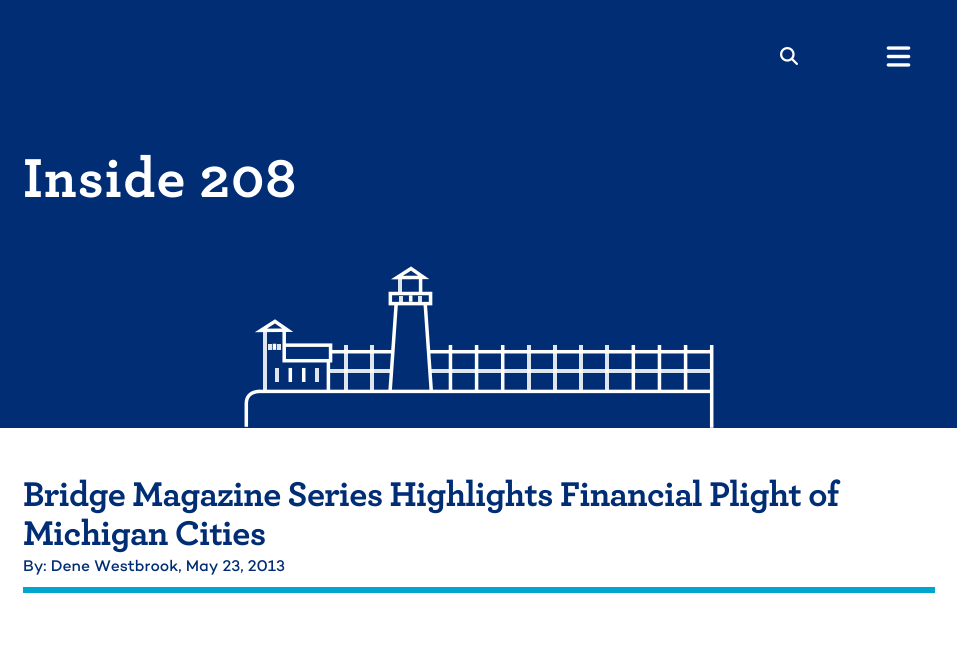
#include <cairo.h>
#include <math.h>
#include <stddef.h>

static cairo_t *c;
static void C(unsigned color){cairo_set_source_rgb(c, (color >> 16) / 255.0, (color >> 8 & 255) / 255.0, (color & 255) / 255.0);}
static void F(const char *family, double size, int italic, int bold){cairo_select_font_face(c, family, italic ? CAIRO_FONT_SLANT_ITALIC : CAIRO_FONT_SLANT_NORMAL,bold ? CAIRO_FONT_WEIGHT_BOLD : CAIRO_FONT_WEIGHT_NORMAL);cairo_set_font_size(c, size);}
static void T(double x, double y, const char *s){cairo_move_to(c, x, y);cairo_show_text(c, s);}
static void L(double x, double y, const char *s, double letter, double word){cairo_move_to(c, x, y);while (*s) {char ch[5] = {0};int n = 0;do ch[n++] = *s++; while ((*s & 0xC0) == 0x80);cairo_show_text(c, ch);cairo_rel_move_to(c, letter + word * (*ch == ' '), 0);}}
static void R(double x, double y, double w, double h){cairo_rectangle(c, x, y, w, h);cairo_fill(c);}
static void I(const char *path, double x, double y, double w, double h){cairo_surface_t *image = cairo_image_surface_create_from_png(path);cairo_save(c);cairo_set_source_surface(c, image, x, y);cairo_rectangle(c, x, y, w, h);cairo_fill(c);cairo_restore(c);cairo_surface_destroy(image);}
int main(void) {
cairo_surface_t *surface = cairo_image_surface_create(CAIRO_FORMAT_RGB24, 957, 653);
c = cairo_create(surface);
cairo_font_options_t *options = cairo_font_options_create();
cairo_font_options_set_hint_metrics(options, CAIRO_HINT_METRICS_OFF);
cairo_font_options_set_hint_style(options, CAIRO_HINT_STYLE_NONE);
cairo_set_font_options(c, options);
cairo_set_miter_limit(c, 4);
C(0xffffff);
cairo_paint(c);
C(0x002d74);
R(0,0,957,428);
I("1.png",780,47,18,18);
I("2.png",886,46,25,21);
F("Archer",57.5,0,1);
C(0xffffff);
L(23,197,"Inside 208",.9,0);
I("3.png",244,266,470,162);
C(0x00a6ce);
R(23,587,912,6);
F("Archer",36,0,1);
C(0x002d74);
L(23,506,"Bridge Magazine Series Highlights Financial Plight of",-.72,0);
L(23,545,"Michigan Cities",-.72,0);
F("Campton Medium",15.75,0,0);
T(23,571,"By: Dene Westbrook, May 23, 2013");
cairo_surface_write_to_png(surface, "o.png");
cairo_font_options_destroy(options);
cairo_destroy(c);
cairo_surface_destroy(surface);
return 0;
}
